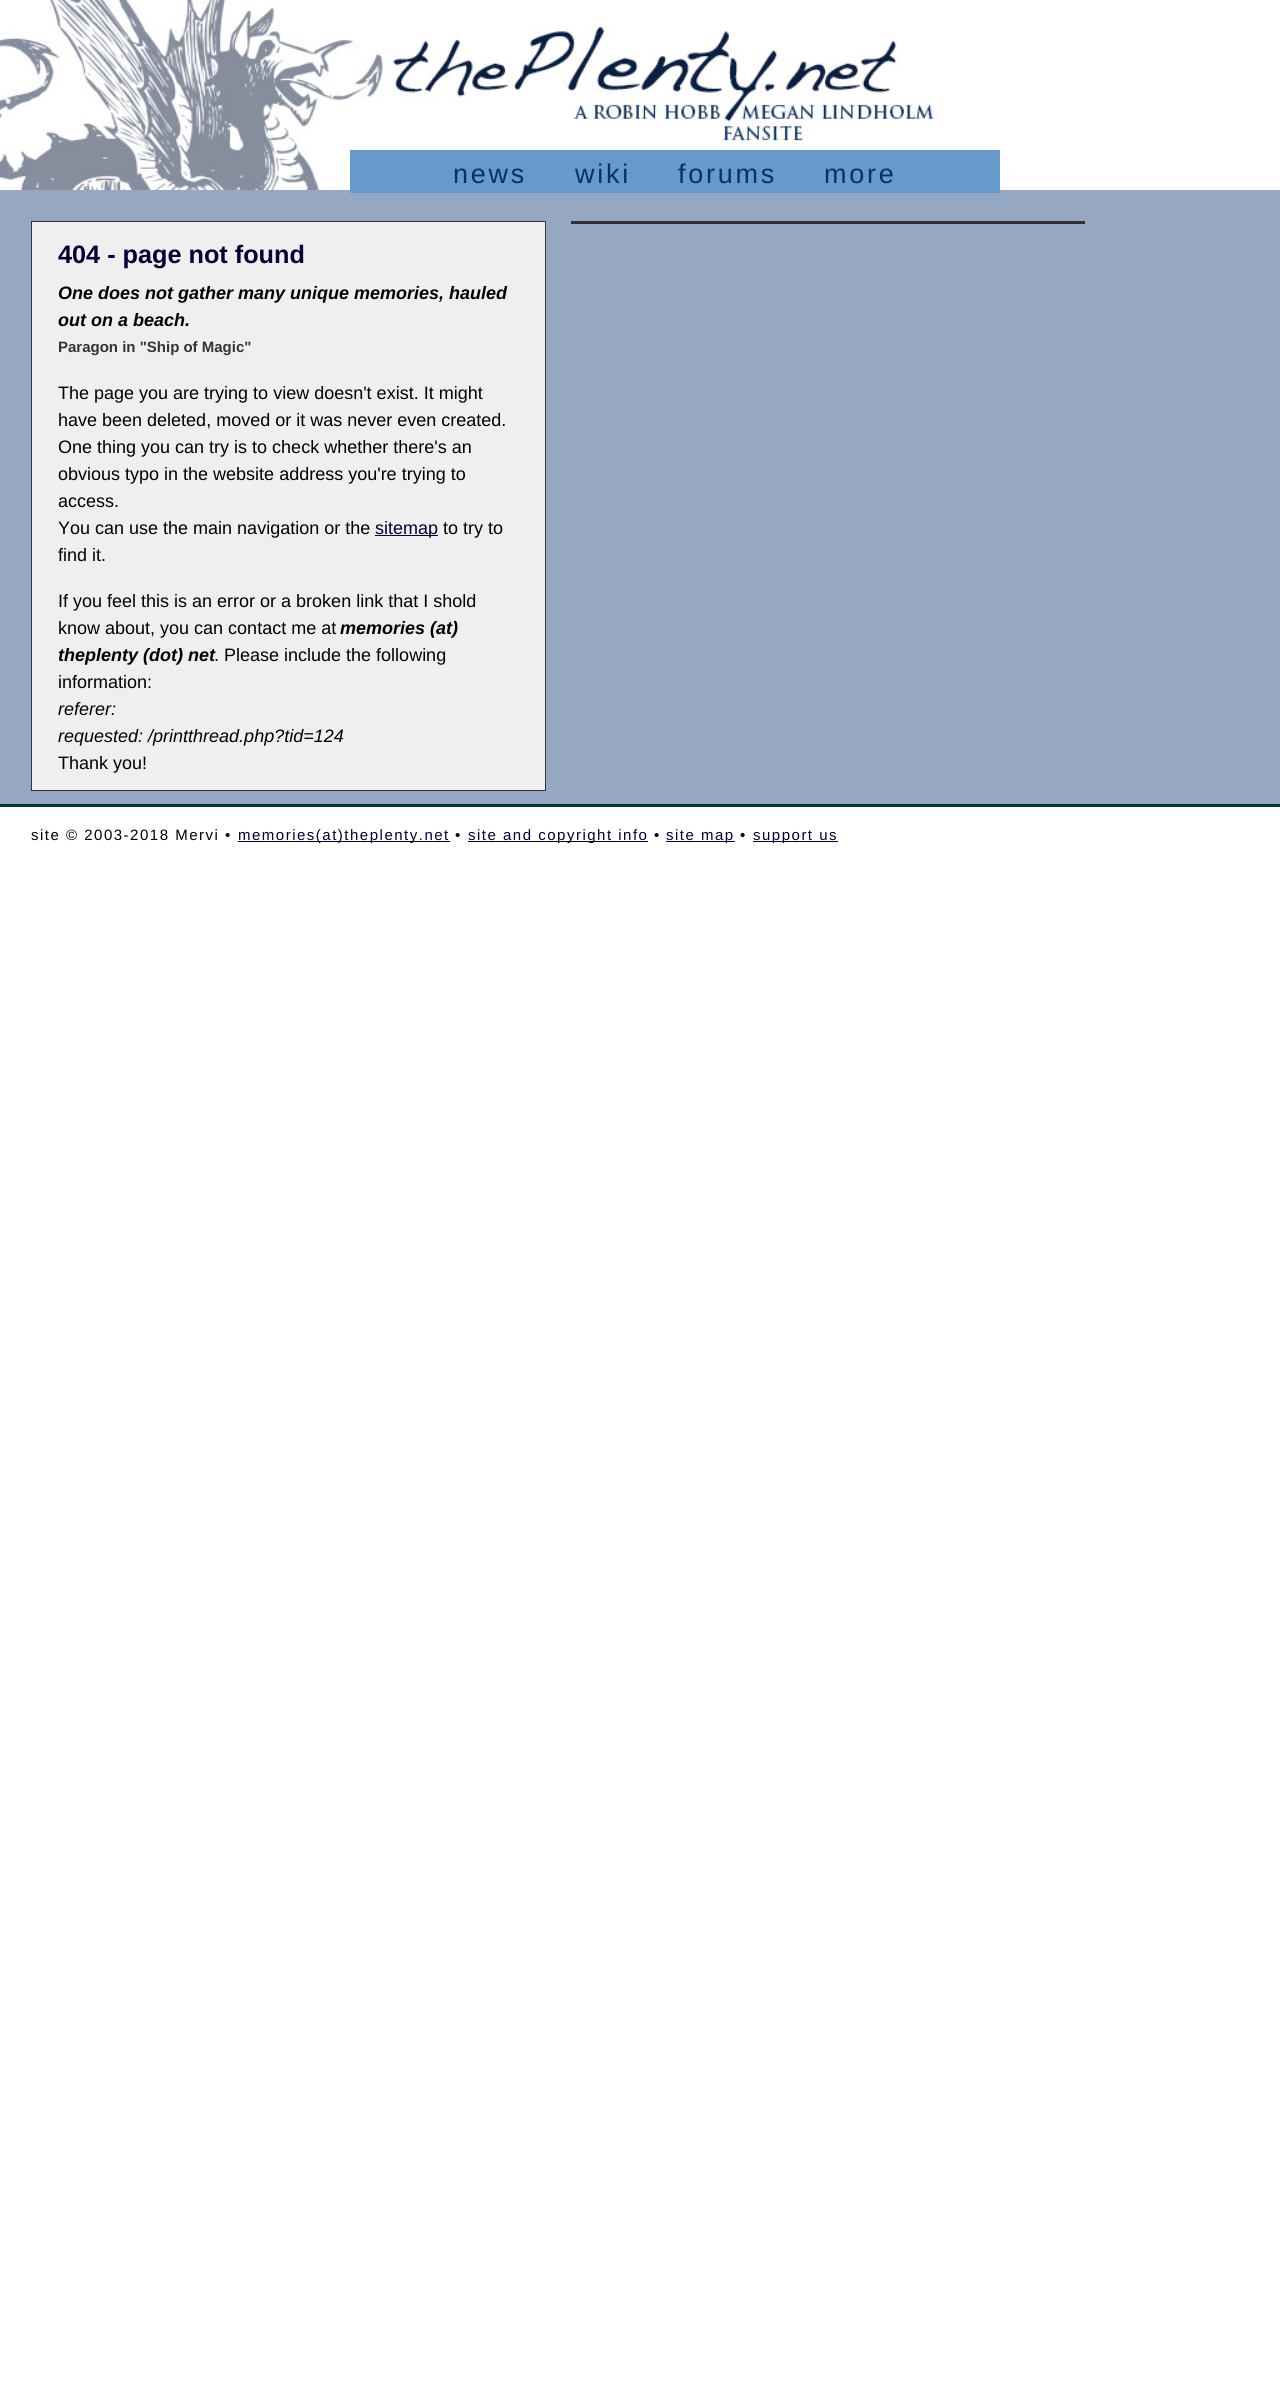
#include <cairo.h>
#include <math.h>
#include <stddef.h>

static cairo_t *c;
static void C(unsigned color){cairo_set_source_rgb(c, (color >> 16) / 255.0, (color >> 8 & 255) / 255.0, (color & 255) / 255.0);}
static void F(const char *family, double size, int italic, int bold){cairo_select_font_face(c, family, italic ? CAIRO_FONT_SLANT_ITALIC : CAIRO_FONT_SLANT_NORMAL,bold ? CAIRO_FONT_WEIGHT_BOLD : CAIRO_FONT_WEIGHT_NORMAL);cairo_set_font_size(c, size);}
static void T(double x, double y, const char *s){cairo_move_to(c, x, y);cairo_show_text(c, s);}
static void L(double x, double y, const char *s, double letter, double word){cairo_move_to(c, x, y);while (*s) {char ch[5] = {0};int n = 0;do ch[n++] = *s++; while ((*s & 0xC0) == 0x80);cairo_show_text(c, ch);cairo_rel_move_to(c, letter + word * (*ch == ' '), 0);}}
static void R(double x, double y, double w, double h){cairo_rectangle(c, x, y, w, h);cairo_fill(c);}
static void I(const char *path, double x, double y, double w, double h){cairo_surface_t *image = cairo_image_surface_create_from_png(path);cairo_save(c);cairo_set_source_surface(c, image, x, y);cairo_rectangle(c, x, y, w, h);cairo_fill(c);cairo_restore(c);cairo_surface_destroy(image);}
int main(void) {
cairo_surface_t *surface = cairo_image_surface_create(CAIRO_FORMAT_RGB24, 1280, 2394);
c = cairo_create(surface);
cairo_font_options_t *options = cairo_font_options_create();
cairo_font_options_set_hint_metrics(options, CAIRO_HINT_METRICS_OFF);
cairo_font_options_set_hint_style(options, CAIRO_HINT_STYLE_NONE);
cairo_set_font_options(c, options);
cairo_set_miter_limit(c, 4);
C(0xffffff);
cairo_paint(c);
I("1.png",0,0,940,190);
C(0x96a7c1);
R(0,190,1280,614);
C(0x6699cc);
R(350,150,650,43);
F("Liberation Sans",27,0,0);
C(0x003366);
L(453,183,"news",2.75,0);
L(575,183,"wiki",2.75,0);
L(678,183,"forums",2.75,0);
L(824,183,"more",2.75,0);
C(0x333333);
R(571,221,514,3);
C(0xefefef);
cairo_rectangle(c,31.5,221.5,514,569);
cairo_fill_preserve(c);
C(0x333333);
cairo_set_line_width(c,1);
cairo_stroke(c);
F("Liberation Sans",25.25,0,1);
C(0x000033);
T(58,263,"404 - page not found");
F("Liberation Sans",18,1,1);
C(0x000000);
T(58,299,"One does not gather many unique memories, hauled");
T(58,326,"out on a beach.");
F("Liberation Sans",15,0,1);
C(0x333333);
T(58,352,"Paragon in \"Ship of Magic\"");
F("Liberation Sans",18,0,0);
C(0x000000);
T(58,399,"The page you are trying to view doesn't exist. It might");
T(58,426,"have been deleted, moved or it was never even created.");
T(58,453,"One thing you can try is to check whether there's an");
T(58,480,"obvious typo in the website address you're trying to");
T(58,507,"access.");
T(58,534,"You can use the main navigation or the");
C(0x000033);
R(375,535,63,1);
T(375,534,"sitemap");
C(0x000000);
T(443,534,"to try to");
T(58,561,"find it.");
T(58,607,"If you feel this is an error or a broken link that I shold");
T(58,634,"know about, you can contact me at");
F("Liberation Sans",18,1,1);
T(340,634,"memories (at)");
T(58,661,"theplenty (dot) net");
F("Liberation Sans",18,0,0);
T(214,661,". Please include the following");
T(58,688,"information:");
F("Liberation Sans",18,1,0);
T(58,715,"referer:");
T(58,742,"requested: /printthread.php?tid=124");
F("Liberation Sans",18,0,0);
T(58,769,"Thank you!");
C(0x003333);
R(0,804,1280,3);
F("Liberation Sans",15,0,0);
C(0x000000);
L(31,840,"site © 2003-2018 Mervi •",1.5,0);
C(0x000033);
R(238,841,212,1);
L(238,840,"memories(at)theplenty.net",1.5,0);
C(0x000000);
L(455,840,"•",1.5,0);
C(0x000033);
R(468,841,180,1);
L(468,840,"site and copyright info",1.5,0);
C(0x000000);
L(654,840,"•",1.5,0);
C(0x000033);
R(666,841,69,1);
L(666,840,"site map",1.5,0);
C(0x000000);
L(740,840,"•",1.5,0);
C(0x000033);
R(753,841,85,1);
L(753,840,"support us",1.5,0);
cairo_surface_write_to_png(surface, "o.png");
cairo_font_options_destroy(options);
cairo_destroy(c);
cairo_surface_destroy(surface);
return 0;
}
